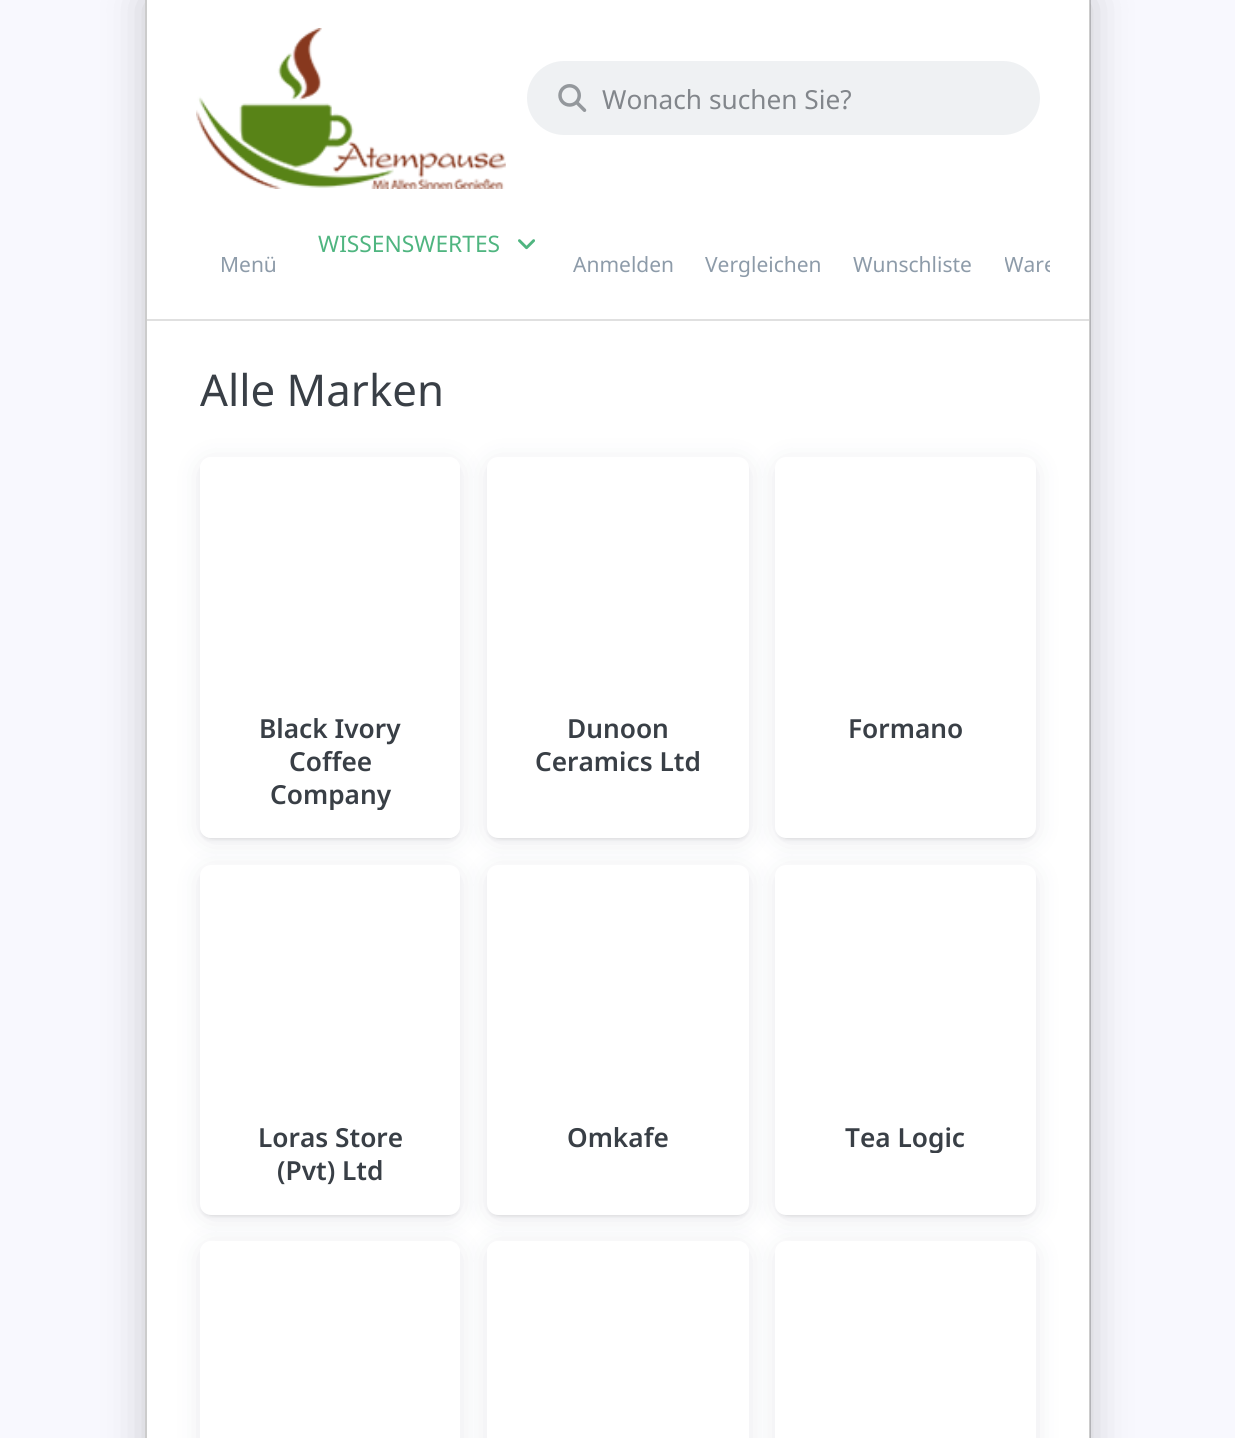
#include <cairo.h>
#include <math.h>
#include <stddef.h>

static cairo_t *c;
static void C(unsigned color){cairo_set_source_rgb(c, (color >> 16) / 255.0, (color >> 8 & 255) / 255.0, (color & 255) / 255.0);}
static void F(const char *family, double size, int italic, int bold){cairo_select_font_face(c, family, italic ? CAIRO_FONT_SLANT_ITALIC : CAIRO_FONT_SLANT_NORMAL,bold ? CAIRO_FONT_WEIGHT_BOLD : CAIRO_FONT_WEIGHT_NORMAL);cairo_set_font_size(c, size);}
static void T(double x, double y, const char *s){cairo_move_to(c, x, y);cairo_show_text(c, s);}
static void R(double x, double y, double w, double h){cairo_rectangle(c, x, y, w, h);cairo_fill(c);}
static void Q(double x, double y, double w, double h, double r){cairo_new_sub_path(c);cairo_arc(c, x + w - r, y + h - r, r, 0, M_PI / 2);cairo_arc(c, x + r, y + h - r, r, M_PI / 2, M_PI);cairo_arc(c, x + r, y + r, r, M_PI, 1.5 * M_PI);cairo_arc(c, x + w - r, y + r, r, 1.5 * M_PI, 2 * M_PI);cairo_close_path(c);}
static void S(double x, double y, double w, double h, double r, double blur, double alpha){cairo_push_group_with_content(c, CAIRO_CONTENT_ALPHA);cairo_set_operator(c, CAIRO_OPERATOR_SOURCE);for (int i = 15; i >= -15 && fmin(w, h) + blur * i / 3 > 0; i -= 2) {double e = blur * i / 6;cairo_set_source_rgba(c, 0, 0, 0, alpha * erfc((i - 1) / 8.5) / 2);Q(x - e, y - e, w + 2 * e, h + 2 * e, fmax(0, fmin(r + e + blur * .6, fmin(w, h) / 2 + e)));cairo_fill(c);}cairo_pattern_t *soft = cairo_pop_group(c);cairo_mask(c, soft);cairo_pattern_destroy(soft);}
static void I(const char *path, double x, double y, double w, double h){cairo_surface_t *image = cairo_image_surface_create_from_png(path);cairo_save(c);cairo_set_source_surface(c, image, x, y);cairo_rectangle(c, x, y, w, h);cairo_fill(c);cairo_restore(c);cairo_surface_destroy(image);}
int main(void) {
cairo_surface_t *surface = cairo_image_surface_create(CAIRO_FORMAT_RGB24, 1235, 1438);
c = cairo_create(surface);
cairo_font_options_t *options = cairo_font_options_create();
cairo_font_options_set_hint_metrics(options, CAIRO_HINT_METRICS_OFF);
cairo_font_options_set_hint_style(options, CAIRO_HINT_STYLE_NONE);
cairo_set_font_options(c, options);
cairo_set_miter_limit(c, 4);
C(0xf8f8fe);
cairo_paint(c);
C(0x000000);
S(145,0,945,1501,0,21,.2);
C(0xffffff);
R(147,0,943,1438);
cairo_set_source_rgba(c,0,0,0,0.2);
R(1089,0,2,1438);
C(0xcccccc);
R(145,0,2,1438);
C(0xe0e0e0);
R(147,319,942,2);
I("1.png",196,28,310,161);
C(0xeff1f3);
Q(528,62,511,72,36);
cairo_fill_preserve(c);
cairo_stroke(c);
I("2.png",558,84,29,28);
F("Noto Sans",26.25,0,0);
C(0x82868b);
T(602,109,"Wonach suchen Sie?");
F("Noto Sans",22.75,0,0);
C(0x4fb580);
T(318,252,"WISSENSWERTES");
I("3.png",518,239,17,11);
F("Noto Sans",21,0,0);
C(0x8d9ba9);
T(220,272,"Menü");
T(573,272,"Anmelden");
T(705,272,"Vergleichen");
T(853,272,"Wunschliste");
cairo_save(c);
cairo_rectangle(c,1005,252,45,26);
cairo_clip(c);
T(1004,272,"Ware");
cairo_restore(c);
F("Noto Sans",43.75,0,0);
C(0x393f46);
T(200,406,"Alle Marken");
cairo_save(c);
cairo_set_fill_rule(c,CAIRO_FILL_RULE_EVEN_ODD);
cairo_new_path(c);
cairo_move_to(c,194,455);
cairo_line_to(c,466,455);
cairo_line_to(c,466,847);
cairo_line_to(c,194,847);
cairo_close_path(c);
cairo_move_to(c,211,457);
cairo_line_to(c,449,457);
cairo_curve_to(c,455,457,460,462,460,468);
cairo_line_to(c,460,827);
cairo_curve_to(c,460,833,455,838,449,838);
cairo_line_to(c,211,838);
cairo_curve_to(c,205,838,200,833,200,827);
cairo_line_to(c,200,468);
cairo_curve_to(c,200,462,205,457,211,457);
cairo_close_path(c);
cairo_clip(c);
C(0x000000);
S(203,464,254,374,7,2.5,.15);
cairo_restore(c);
cairo_save(c);
cairo_set_fill_rule(c,CAIRO_FILL_RULE_EVEN_ODD);
cairo_new_path(c);
cairo_move_to(c,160,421);
cairo_line_to(c,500,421);
cairo_line_to(c,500,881);
cairo_line_to(c,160,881);
cairo_close_path(c);
cairo_move_to(c,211,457);
cairo_line_to(c,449,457);
cairo_curve_to(c,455,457,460,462,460,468);
cairo_line_to(c,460,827);
cairo_curve_to(c,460,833,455,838,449,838);
cairo_line_to(c,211,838);
cairo_curve_to(c,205,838,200,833,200,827);
cairo_line_to(c,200,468);
cairo_curve_to(c,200,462,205,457,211,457);
cairo_close_path(c);
cairo_clip(c);
C(0x1a214b);
S(203,464,254,374,7,14,.12);
cairo_restore(c);
F("Noto Sans SemiBold",26.25,0,0);
T(259,738,"Black Ivory");
T(289,771,"Coffee");
cairo_save(c);
Q(228,712,204,98,4);
cairo_clip(c);
T(270,804,"Company");
cairo_restore(c);
C(0x000000);
S(490,464,256,374,7,2.5,.15);
C(0x1a214b);
S(490,464,256,374,7,14,.12);
C(0xffffff);
Q(487,457,262,381,11);
cairo_fill(c);
C(0x393f46);
T(567,738,"Dunoon");
T(535,771,"Ceramics Ltd");
C(0x000000);
S(779,464,254,374,7,2.5,.15);
C(0x1a214b);
S(779,464,254,374,7,14,.12);
C(0xffffff);
Q(775,457,261,381,11);
cairo_fill(c);
C(0x393f46);
T(848,738,"Formano");
C(0x000000);
S(203,872,254,343,7,2.5,.15);
C(0x1a214b);
S(203,872,254,343,7,14,.12);
C(0xffffff);
Q(200,865,260,350,11);
cairo_fill(c);
C(0x393f46);
T(258,1147,"Loras Store");
T(277,1180,"(Pvt) Ltd");
C(0x000000);
S(490,872,256,343,7,2.5,.15);
C(0x1a214b);
S(490,872,256,343,7,14,.12);
C(0xffffff);
Q(487,865,262,350,11);
cairo_fill(c);
C(0x393f46);
T(567,1147,"Omkafe");
C(0x000000);
S(779,872,254,343,7,2.5,.15);
C(0x1a214b);
S(779,872,254,343,7,14,.12);
C(0xffffff);
Q(775,865,261,350,11);
cairo_fill(c);
cairo_save(c);
Q(803,1120,205,33,4);
cairo_clip(c);
C(0x393f46);
T(845,1147,"Tea Logic");
cairo_restore(c);
cairo_save(c);
cairo_set_fill_rule(c,CAIRO_FILL_RULE_EVEN_ODD);
cairo_new_path(c);
cairo_move_to(c,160,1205);
cairo_line_to(c,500,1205);
cairo_line_to(c,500,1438);
cairo_line_to(c,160,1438);
cairo_close_path(c);
cairo_move_to(c,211,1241);
cairo_line_to(c,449,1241);
cairo_curve_to(c,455,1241,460,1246,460,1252);
cairo_line_to(c,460,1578);
cairo_curve_to(c,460,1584,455,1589,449,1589);
cairo_line_to(c,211,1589);
cairo_curve_to(c,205,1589,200,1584,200,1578);
cairo_line_to(c,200,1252);
cairo_curve_to(c,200,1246,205,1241,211,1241);
cairo_close_path(c);
cairo_clip(c);
C(0x1a214b);
S(203,1248,254,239,7,14,.12);
cairo_restore(c);
cairo_save(c);
cairo_set_fill_rule(c,CAIRO_FILL_RULE_EVEN_ODD);
cairo_new_path(c);
cairo_move_to(c,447,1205);
cairo_line_to(c,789,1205);
cairo_line_to(c,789,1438);
cairo_line_to(c,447,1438);
cairo_close_path(c);
cairo_move_to(c,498,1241);
cairo_line_to(c,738,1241);
cairo_curve_to(c,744,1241,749,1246,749,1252);
cairo_line_to(c,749,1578);
cairo_curve_to(c,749,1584,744,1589,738,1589);
cairo_line_to(c,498,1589);
cairo_curve_to(c,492,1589,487,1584,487,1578);
cairo_line_to(c,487,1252);
cairo_curve_to(c,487,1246,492,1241,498,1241);
cairo_close_path(c);
cairo_clip(c);
C(0x1a214b);
S(490,1248,256,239,7,14,.12);
cairo_restore(c);
C(0x1a214b);
S(779,1248,254,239,7,14,.12);
C(0xffffff);
Q(775,1241,261,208,11);
cairo_fill(c);
cairo_surface_write_to_png(surface, "o.png");
cairo_font_options_destroy(options);
cairo_destroy(c);
cairo_surface_destroy(surface);
return 0;
}
